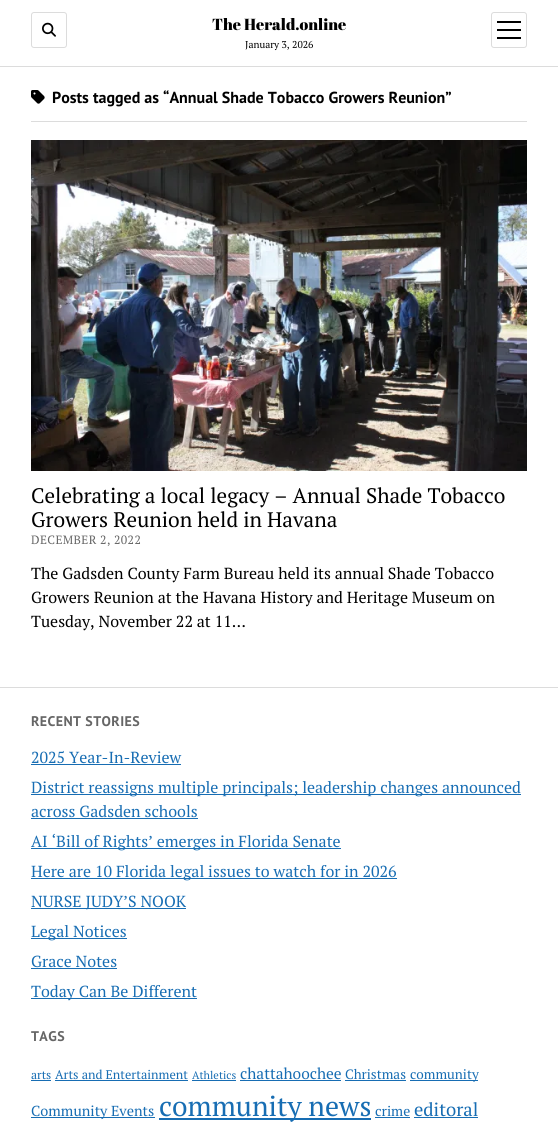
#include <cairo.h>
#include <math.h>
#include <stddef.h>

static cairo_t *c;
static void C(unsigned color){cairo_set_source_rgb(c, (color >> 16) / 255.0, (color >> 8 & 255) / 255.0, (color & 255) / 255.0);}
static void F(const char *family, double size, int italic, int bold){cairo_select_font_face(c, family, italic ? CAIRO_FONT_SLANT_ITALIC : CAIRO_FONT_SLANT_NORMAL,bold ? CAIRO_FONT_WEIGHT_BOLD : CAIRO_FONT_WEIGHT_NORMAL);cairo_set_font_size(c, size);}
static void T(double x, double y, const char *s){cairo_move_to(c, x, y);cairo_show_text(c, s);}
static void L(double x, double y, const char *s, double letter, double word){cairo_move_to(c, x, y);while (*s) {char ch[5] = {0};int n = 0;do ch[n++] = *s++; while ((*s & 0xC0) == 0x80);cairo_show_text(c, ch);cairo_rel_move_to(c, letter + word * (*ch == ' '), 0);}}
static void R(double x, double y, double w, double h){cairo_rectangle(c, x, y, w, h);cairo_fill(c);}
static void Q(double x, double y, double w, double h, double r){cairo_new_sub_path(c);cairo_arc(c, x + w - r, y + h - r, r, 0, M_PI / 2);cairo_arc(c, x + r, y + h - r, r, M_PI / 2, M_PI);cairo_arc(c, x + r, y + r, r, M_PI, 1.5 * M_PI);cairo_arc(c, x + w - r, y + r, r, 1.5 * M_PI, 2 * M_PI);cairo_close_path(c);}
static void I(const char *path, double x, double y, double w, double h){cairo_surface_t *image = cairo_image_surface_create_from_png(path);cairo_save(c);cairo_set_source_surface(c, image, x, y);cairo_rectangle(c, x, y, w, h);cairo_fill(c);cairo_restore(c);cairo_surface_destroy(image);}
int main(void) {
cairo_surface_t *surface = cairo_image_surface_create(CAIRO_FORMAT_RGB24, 558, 1125);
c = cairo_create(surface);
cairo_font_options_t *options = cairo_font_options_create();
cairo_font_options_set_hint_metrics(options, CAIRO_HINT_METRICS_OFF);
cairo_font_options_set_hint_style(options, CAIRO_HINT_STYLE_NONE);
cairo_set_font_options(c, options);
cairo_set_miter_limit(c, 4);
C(0xffffff);
cairo_paint(c);
C(0xdcdcdc);
R(0,66,558,1);
Q(31.5,12.5,35,35,2.5);
cairo_set_line_width(c,1);
cairo_stroke(c);
I("1.png",42,22,14,15);
F("Abril Fatface",16,0,0);
C(0x000000);
T(212,30,"The Herald.online");
F("PT Serif",10,0,0);
T(245,48,"January 3, 2026");
Q(491.5,12.5,35,35,2.5);
C(0xdcdcdc);
cairo_stroke(c);
C(0x000000);
R(497,21,24,2);
R(497,29,24,2);
R(497,37,24,2);
C(0xdcdcdc);
R(31,121,496,1);
I("2.png",31,90,14,14);
F("PT Sans",16,0,1);
C(0x000000);
T(52,103,"Posts tagged as “Annual Shade Tobacco Growers Reunion”");
I("3.png",31,140,496,331);
F("PT Serif",21,0,0);
T(31,503,"Celebrating a local legacy – Annual Shade Tobacco");
T(31,527,"Growers Reunion held in Havana");
F("PT Serif",12,0,0);
C(0x666666);
L(31,544,"DECEMBER 2, 2022",.4,0);
F("PT Serif",16,0,0);
C(0x000000);
T(31,579,"The Gadsden County Farm Bureau held its annual Shade Tobacco");
T(31,603,"Growers Reunion at the Havana History and Heritage Museum on");
T(31,627,"Tuesday, November 22 at 11…");
C(0xdcdcdc);
R(0,687,558,1);
F("PT Sans",14,0,1);
C(0x666666);
L(31,726,"RECENT STORIES",.4,0);
F("PT Serif",16,0,0);
C(0x176db3);
T(31,763,"2025 Year-In-Review");
R(31,764,150,1);
R(31,794,490,1);
T(31,793,"District reassigns multiple principals; leadership changes announced");
T(31,817,"across Gadsden schools");
R(31,818,167,1);
R(31,848,310,1);
T(31,847,"AI ‘Bill of Rights’ emerges in Florida Senate");
R(31,878,366,1);
T(31,877,"Here are 10 Florida legal issues to watch for in 2026");
R(31,908,155,1);
T(31,907,"NURSE JUDY’S NOOK");
R(31,938,96,1);
T(31,937,"Legal Notices");
T(31,967,"Grace Notes");
R(31,968,86,1);
R(31,998,166,1);
T(31,997,"Today Can Be Different");
F("PT Sans",14,0,1);
C(0x666666);
L(31,1041,"TAGS",.4,0);
F("PT Serif",12,0,0);
C(0x176db3);
T(31,1079,"arts");
R(31,1080,20,1);
F("PT Serif",12.6,0,0);
T(55,1079,"Arts and Entertainment");
R(55,1080,133,1);
F("PT Serif",11,0,0);
T(192,1079,"Athletics");
R(192,1080,44,1);
F("PT Serif",15.5,0,0);
T(240,1079,"chattahoochee");
R(240,1080,101,1);
F("PT Serif",13.5,0,0);
T(345,1079,"Christmas");
R(345,1080,61,1);
R(410,1080,68,1);
T(410,1079,"community");
R(31,1117,124,1);
F("PT Serif",14.5,0,0);
T(31,1116,"Community Events");
R(159,1118,212,2);
F("PT Serif",28,0,0);
T(159,1116,"community news");
F("PT Serif",14,0,0);
T(375,1116,"crime");
R(375,1117,35,1);
F("PT Serif",18.5,0,0);
T(414,1116,"editoral");
R(414,1117,64,1);
cairo_surface_write_to_png(surface, "o.png");
cairo_font_options_destroy(options);
cairo_destroy(c);
cairo_surface_destroy(surface);
return 0;
}
